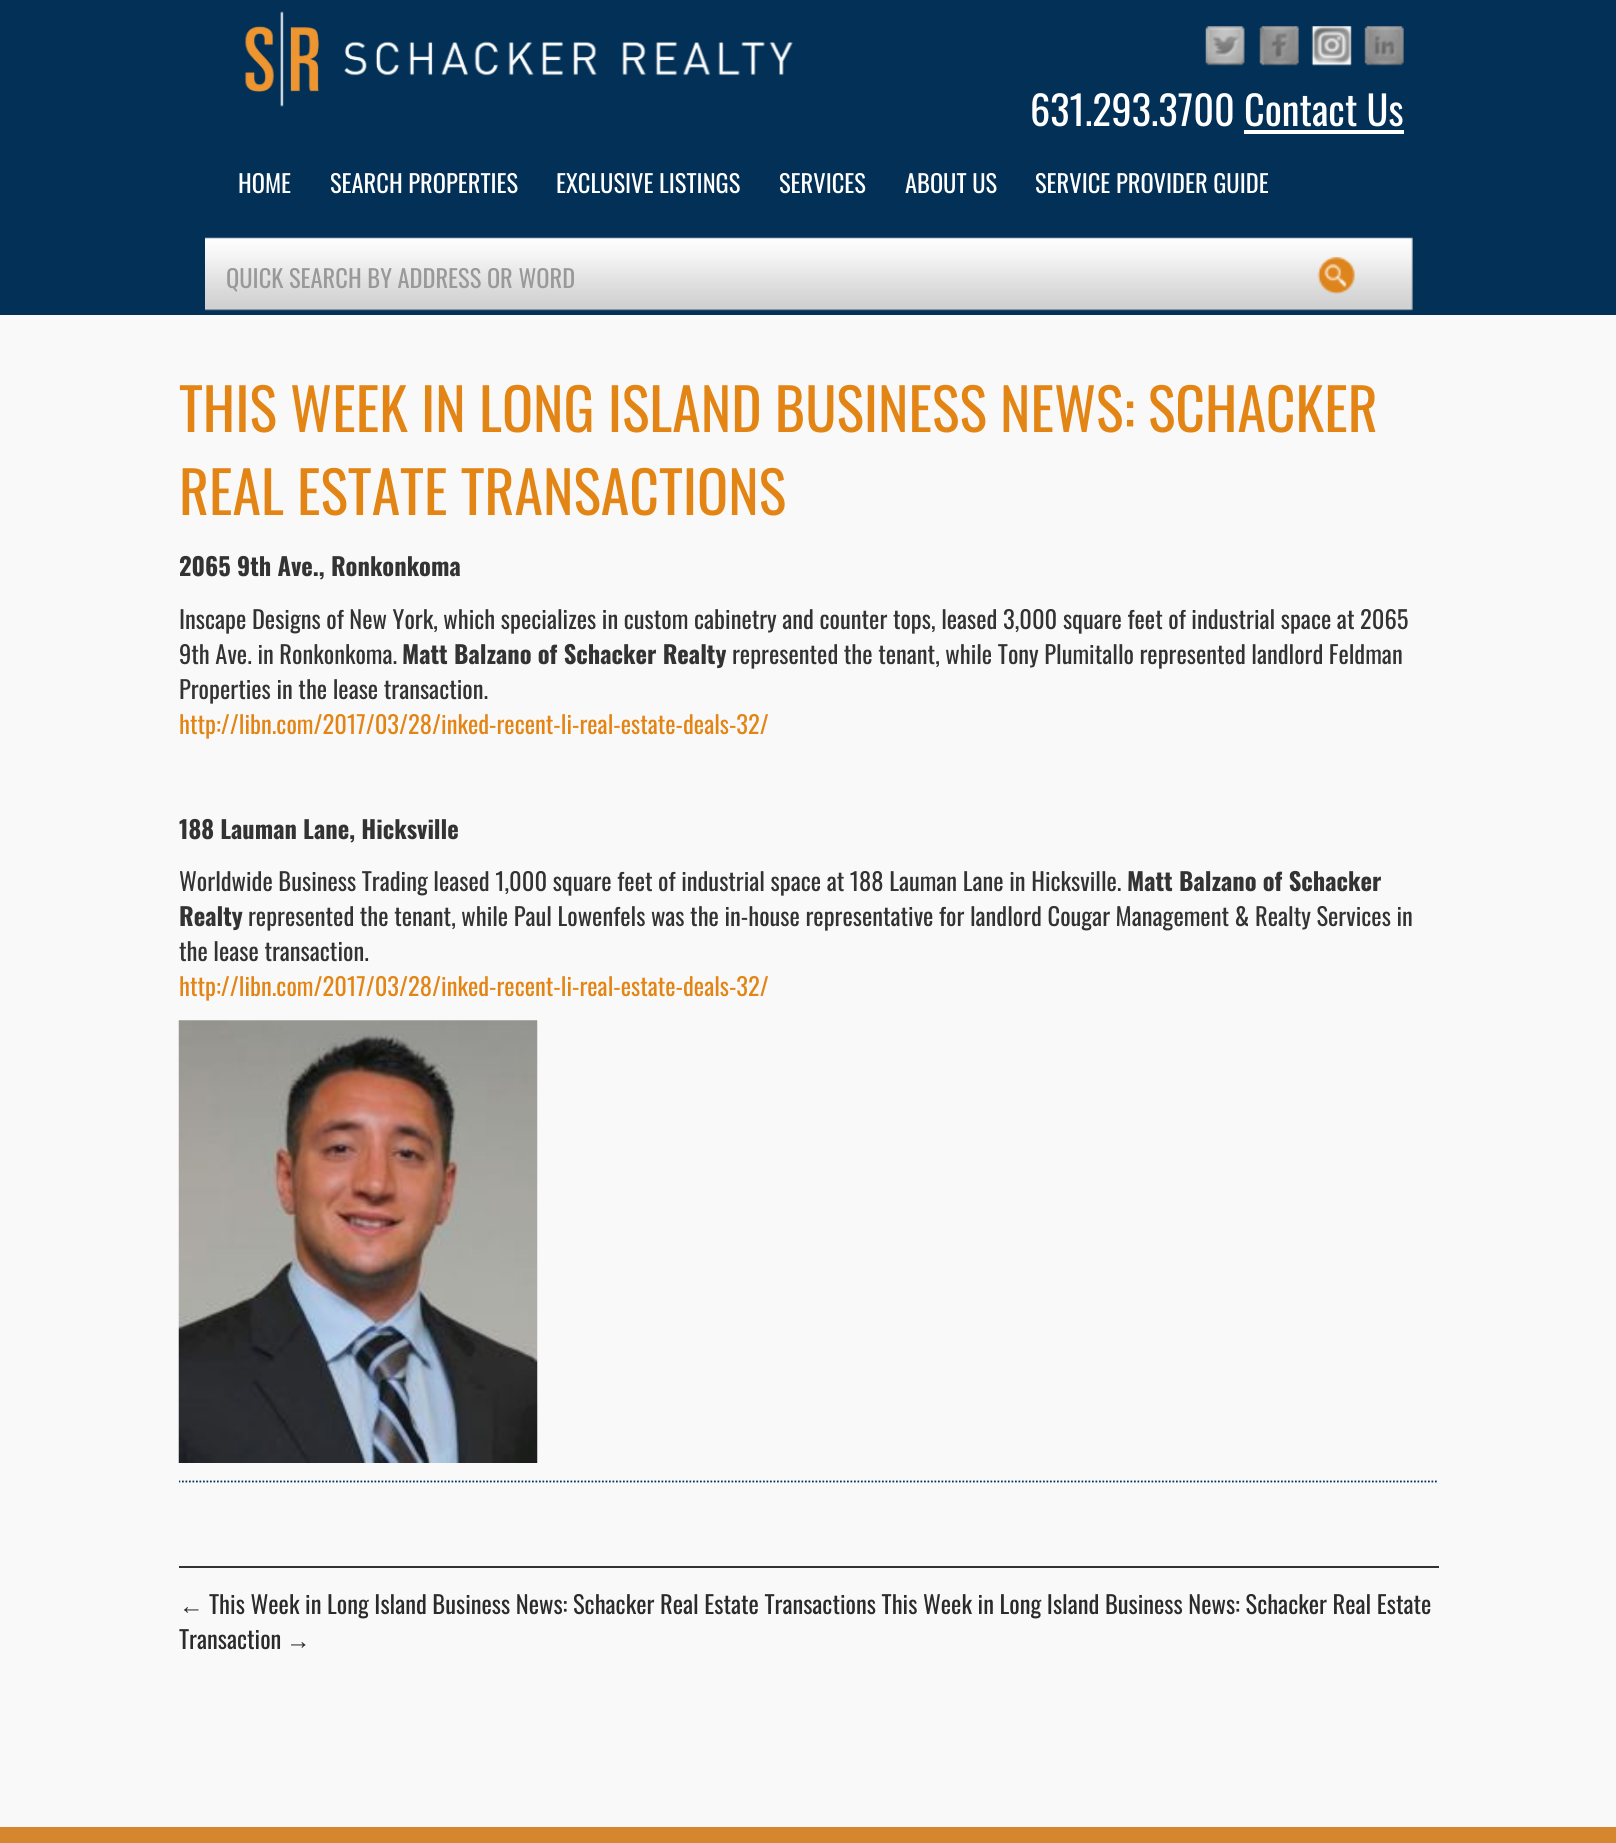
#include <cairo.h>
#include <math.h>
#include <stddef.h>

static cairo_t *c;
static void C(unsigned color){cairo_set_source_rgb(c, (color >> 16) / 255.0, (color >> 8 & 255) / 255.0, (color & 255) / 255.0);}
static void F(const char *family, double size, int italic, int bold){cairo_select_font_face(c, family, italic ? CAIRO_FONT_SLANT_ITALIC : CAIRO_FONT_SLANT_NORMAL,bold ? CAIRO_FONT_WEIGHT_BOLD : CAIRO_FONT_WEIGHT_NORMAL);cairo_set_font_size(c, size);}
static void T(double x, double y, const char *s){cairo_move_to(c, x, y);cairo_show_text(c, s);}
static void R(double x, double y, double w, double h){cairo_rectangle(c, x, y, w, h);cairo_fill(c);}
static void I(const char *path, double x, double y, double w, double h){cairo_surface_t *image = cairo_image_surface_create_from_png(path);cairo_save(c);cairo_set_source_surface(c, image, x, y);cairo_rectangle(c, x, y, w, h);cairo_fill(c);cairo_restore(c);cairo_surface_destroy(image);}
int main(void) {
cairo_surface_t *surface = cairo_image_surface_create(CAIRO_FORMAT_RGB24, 1616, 1843);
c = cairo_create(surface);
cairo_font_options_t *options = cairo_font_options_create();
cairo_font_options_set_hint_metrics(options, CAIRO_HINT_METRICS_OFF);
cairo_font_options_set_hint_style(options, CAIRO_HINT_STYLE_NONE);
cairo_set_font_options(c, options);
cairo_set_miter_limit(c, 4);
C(0xf9f9f9);
cairo_paint(c);
C(0x023056);
R(0,0,1616,315);
I("1.png",245,11,548,96);
I("2.png",1205,26,40,40);
I("3.png",1259,26,40,40);
I("4.png",1311,26,41,40);
I("5.png",1364,26,40,40);
F("Oswald",40.25,0,0);
C(0xffffff);
T(1030,126,"631.293.3700 Contact Us");
R(1244,130,160,4);
F("Oswald",24.5,0,0);
T(238,193,"HOME");
T(330,193,"SEARCH PROPERTIES");
T(556,193,"EXCLUSIVE LISTINGS");
T(779,193,"SERVICES");
T(905,193,"ABOUT US");
T(1035,193,"SERVICE PROVIDER GUIDE");
I("6.png",205,237,1208,74);
I("7.png",1317,257,38,37);
C(0x999999);
T(226,288,"QUICK SEARCH BY ADDRESS OR WORD");
cairo_save(c);
cairo_rectangle(c,179,313,1260,1462);
cairo_clip(c);
cairo_new_path(c);
cairo_move_to(c,178.5,1481.5);
cairo_line_to(c,1438.5,1481.5);
C(0x023056);
cairo_set_line_width(c,1.8);
cairo_set_dash(c,(double[]){1.75,1.75},2,0);
cairo_stroke(c);
cairo_restore(c);
F("Oswald",57.75,0,0);
C(0xe38515);
T(179,432,"THIS WEEK IN LONG ISLAND BUSINESS NEWS: SCHACKER");
T(179,515,"REAL ESTATE TRANSACTIONS");
F("Oswald",24.5,0,1);
C(0x333333);
T(179,576,"2065 9th Ave., Ronkonkoma");
F("Oswald",24.5,0,0);
T(179,629,"Inscape Designs of New York, which specializes in custom cabinetry and counter tops, leased 3,000 square feet of industrial space at 2065");
T(179,664,"9th Ave. in Ronkonkoma.");
F("Oswald",24.5,0,1);
T(402,664,"Matt Balzano of Schacker Realty");
F("Oswald",24.5,0,0);
T(732,664,"represented the tenant, while Tony Plumitallo represented landlord Feldman");
T(179,699,"Properties in the lease transaction.");
C(0xe38515);
T(179,734,"http://libn.com/2017/03/28/inked-recent-li-real-estate-deals-32/");
F("Oswald",24.5,0,1);
C(0x333333);
T(179,839,"188 Lauman Lane, Hicksville");
F("Oswald",24.5,0,0);
T(179,891,"Worldwide Business Trading leased 1,000 square feet of industrial space at 188 Lauman Lane in Hicksville.");
F("Oswald",24.5,0,1);
T(1127,891,"Matt Balzano of Schacker");
T(179,926,"Realty");
F("Oswald",24.5,0,0);
T(248,926,"represented the tenant, while Paul Lowenfels was the in-house representative for landlord Cougar Management & Realty Services in");
T(179,961,"the lease transaction.");
C(0xe38515);
T(179,996,"http://libn.com/2017/03/28/inked-recent-li-real-estate-deals-32/");
I("8.png",178,1020,360,443);
C(0x333333);
R(179,1566,1260,2);
F("Liberation Sans",24.5,0,0);
C(0x2b2b2b);
T(179,1614,"←");
F("Oswald",24.5,0,0);
T(209,1614,"This Week in Long Island Business News: Schacker Real Estate Transactions This Week in Long Island Business News: Schacker Real Estate");
T(179,1649,"Transaction");
F("Liberation Sans",24.5,0,0);
T(286,1649,"→");
C(0xd6862c);
R(0,1827,1616,16);
cairo_surface_write_to_png(surface, "o.png");
cairo_font_options_destroy(options);
cairo_destroy(c);
cairo_surface_destroy(surface);
return 0;
}
